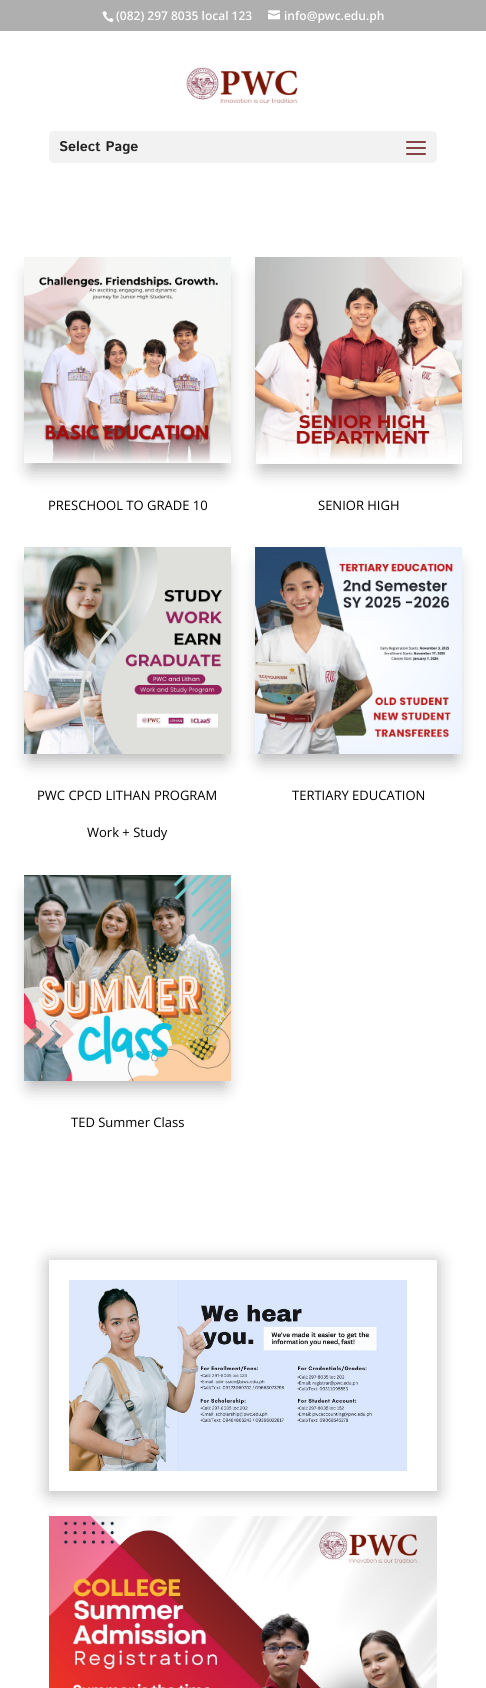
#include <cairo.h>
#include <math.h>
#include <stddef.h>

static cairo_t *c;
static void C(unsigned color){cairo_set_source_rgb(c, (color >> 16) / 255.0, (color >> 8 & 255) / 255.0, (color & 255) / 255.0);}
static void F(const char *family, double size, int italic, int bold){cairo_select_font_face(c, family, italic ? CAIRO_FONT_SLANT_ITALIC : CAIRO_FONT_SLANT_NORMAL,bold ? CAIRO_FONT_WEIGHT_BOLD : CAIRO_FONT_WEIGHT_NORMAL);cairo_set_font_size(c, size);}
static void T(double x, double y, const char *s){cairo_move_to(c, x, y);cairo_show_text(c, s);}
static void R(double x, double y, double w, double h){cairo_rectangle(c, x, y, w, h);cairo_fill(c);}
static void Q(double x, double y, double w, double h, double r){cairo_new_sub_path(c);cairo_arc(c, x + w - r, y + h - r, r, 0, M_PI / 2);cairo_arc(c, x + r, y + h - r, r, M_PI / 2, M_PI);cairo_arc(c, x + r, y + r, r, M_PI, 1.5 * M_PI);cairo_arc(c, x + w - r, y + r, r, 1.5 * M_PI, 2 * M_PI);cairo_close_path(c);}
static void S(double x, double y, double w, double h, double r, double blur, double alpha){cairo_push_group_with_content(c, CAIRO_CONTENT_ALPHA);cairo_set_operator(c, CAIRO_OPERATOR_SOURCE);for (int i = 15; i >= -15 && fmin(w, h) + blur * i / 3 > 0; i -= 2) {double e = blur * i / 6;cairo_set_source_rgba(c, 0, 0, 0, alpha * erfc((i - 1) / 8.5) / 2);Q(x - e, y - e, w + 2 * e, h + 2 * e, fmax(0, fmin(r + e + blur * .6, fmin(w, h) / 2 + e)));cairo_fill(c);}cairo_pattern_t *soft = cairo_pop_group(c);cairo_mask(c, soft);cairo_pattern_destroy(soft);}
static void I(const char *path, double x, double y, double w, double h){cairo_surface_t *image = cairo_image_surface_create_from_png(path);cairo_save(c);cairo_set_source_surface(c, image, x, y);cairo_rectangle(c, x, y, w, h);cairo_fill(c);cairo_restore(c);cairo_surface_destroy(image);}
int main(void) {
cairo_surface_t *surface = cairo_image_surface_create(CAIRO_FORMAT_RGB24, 486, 1688);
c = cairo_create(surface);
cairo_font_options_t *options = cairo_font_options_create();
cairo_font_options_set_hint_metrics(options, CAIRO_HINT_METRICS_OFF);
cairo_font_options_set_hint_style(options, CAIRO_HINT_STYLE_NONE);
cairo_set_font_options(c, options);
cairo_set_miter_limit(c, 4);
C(0xffffff);
cairo_paint(c);
C(0xafafaf);
R(0,0,486,31);
I("1.png",102,11,12,12);
F("Open Sans SemiBold",12,0,0);
C(0xffffff);
T(116,20,"(082) 297 8035 local 123");
I("2.png",268,10,12,10);
T(284,20,"info@pwc.edu.ph");
I("3.png",186,67,112,36);
C(0xf2f2f2);
Q(49,131,388,32,5);
cairo_fill(c);
F("Istok Web",14,0,1);
C(0x242424);
T(59,151,"Select Page");
I("4.png",406,141,20,14);
C(0x000000);
S(30,275,195,195,0,9,.3);
I("5.png",24,257,207,206);
F("Open Sans",13,0,0);
C(0x000000);
T(48,510,"PRESCHOOL TO GRADE 10");
C(0x000000);
S(261,275,195,195,0,9,.3);
I("6.png",255,257,207,207);
C(0x000000);
T(318,510,"SENIOR HIGH");
C(0x000000);
S(30,565,195,195,0,9,.3);
I("7.png",24,547,207,207);
C(0x000000);
T(37,800,"PWC CPCD LITHAN PROGRAM");
T(87,837,"Work + Study");
C(0x000000);
S(261,565,195,195,0,9,.3);
I("8.png",255,547,207,207);
C(0x000000);
T(292,800,"TERTIARY EDUCATION");
C(0x000000);
S(30,893,195,194,0,9,.3);
I("9.png",24,875,207,206);
C(0x000000);
T(71,1127,"TED Summer Class");
cairo_save(c);
cairo_set_fill_rule(c,CAIRO_FILL_RULE_EVEN_ODD);
cairo_new_path(c);
cairo_move_to(c,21,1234);
cairo_line_to(c,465,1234);
cairo_line_to(c,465,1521);
cairo_line_to(c,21,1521);
cairo_close_path(c);
cairo_move_to(c,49,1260);
cairo_line_to(c,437,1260);
cairo_line_to(c,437,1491);
cairo_line_to(c,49,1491);
cairo_close_path(c);
cairo_clip(c);
C(0x000000);
S(49,1262,388,231,0,9,.3);
cairo_restore(c);
I("10.png",69,1280,338,191);
I("11.png",49,1516,388,172);
cairo_surface_write_to_png(surface, "o.png");
cairo_font_options_destroy(options);
cairo_destroy(c);
cairo_surface_destroy(surface);
return 0;
}
